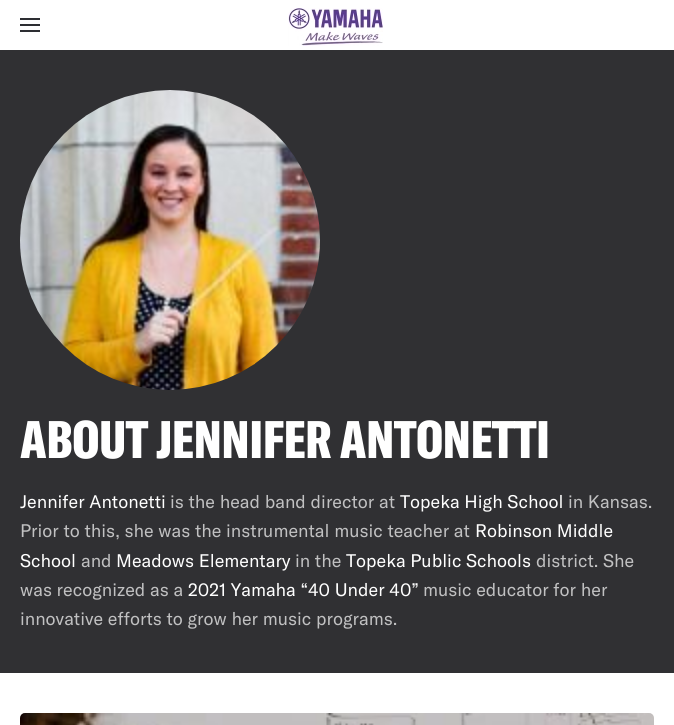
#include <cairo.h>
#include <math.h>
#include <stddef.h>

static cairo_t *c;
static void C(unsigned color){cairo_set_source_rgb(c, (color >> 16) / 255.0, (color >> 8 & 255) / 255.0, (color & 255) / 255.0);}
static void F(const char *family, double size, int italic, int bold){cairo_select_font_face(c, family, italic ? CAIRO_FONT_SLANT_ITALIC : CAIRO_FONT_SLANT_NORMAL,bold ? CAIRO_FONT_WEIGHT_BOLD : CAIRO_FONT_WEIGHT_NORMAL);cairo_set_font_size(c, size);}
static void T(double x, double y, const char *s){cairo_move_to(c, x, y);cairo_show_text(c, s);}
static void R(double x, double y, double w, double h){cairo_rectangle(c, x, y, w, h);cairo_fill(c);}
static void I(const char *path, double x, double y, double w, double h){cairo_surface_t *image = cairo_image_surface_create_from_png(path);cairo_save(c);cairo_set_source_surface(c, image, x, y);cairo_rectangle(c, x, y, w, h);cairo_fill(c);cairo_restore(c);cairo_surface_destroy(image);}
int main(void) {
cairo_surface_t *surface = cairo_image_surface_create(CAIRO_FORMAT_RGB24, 674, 725);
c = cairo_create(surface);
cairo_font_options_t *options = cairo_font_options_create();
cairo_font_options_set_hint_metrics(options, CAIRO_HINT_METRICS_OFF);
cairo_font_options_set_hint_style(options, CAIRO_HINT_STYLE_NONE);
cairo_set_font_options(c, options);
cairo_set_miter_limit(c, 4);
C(0xffffff);
cairo_paint(c);
C(0x2d2e33);
R(20,18,20,2);
R(20,24,20,2);
R(20,30,20,2);
I("1.png",288,8,95,38);
C(0x303033);
R(0,50,674,623);
I("2.png",20,90,300,300);
F("GT America Black",52,0,0);
C(0xffffff);
T(20,458,"ABOUT JENNIFER ANTONETTI");
F("GT America",18,0,0);
T(20,508,"Jennifer Antonetti");
C(0xc1c1c2);
T(170,508,"is the head band director at");
C(0xffffff);
T(400,508,"Topeka High School");
C(0xc1c1c2);
T(568,508,"in Kansas.");
T(20,537,"Prior to this, she was the instrumental music teacher at");
C(0xffffff);
T(475,537,"Robinson Middle");
T(20,567,"School");
C(0xc1c1c2);
T(81,567,"and");
C(0xffffff);
T(116,567,"Meadows Elementary");
C(0xc1c1c2);
T(295,567,"in the");
C(0xffffff);
T(346,567,"Topeka Public Schools");
C(0xc1c1c2);
T(536,567,"district. She");
T(20,596,"was recognized as a");
C(0xffffff);
T(188,596,"2021 Yamaha “40 Under 40”");
C(0xc1c1c2);
T(423,596,"music educator for her");
T(20,625,"innovative efforts to grow her music programs.");
I("3.png",20,713,634,12);
cairo_surface_write_to_png(surface, "o.png");
cairo_font_options_destroy(options);
cairo_destroy(c);
cairo_surface_destroy(surface);
return 0;
}
